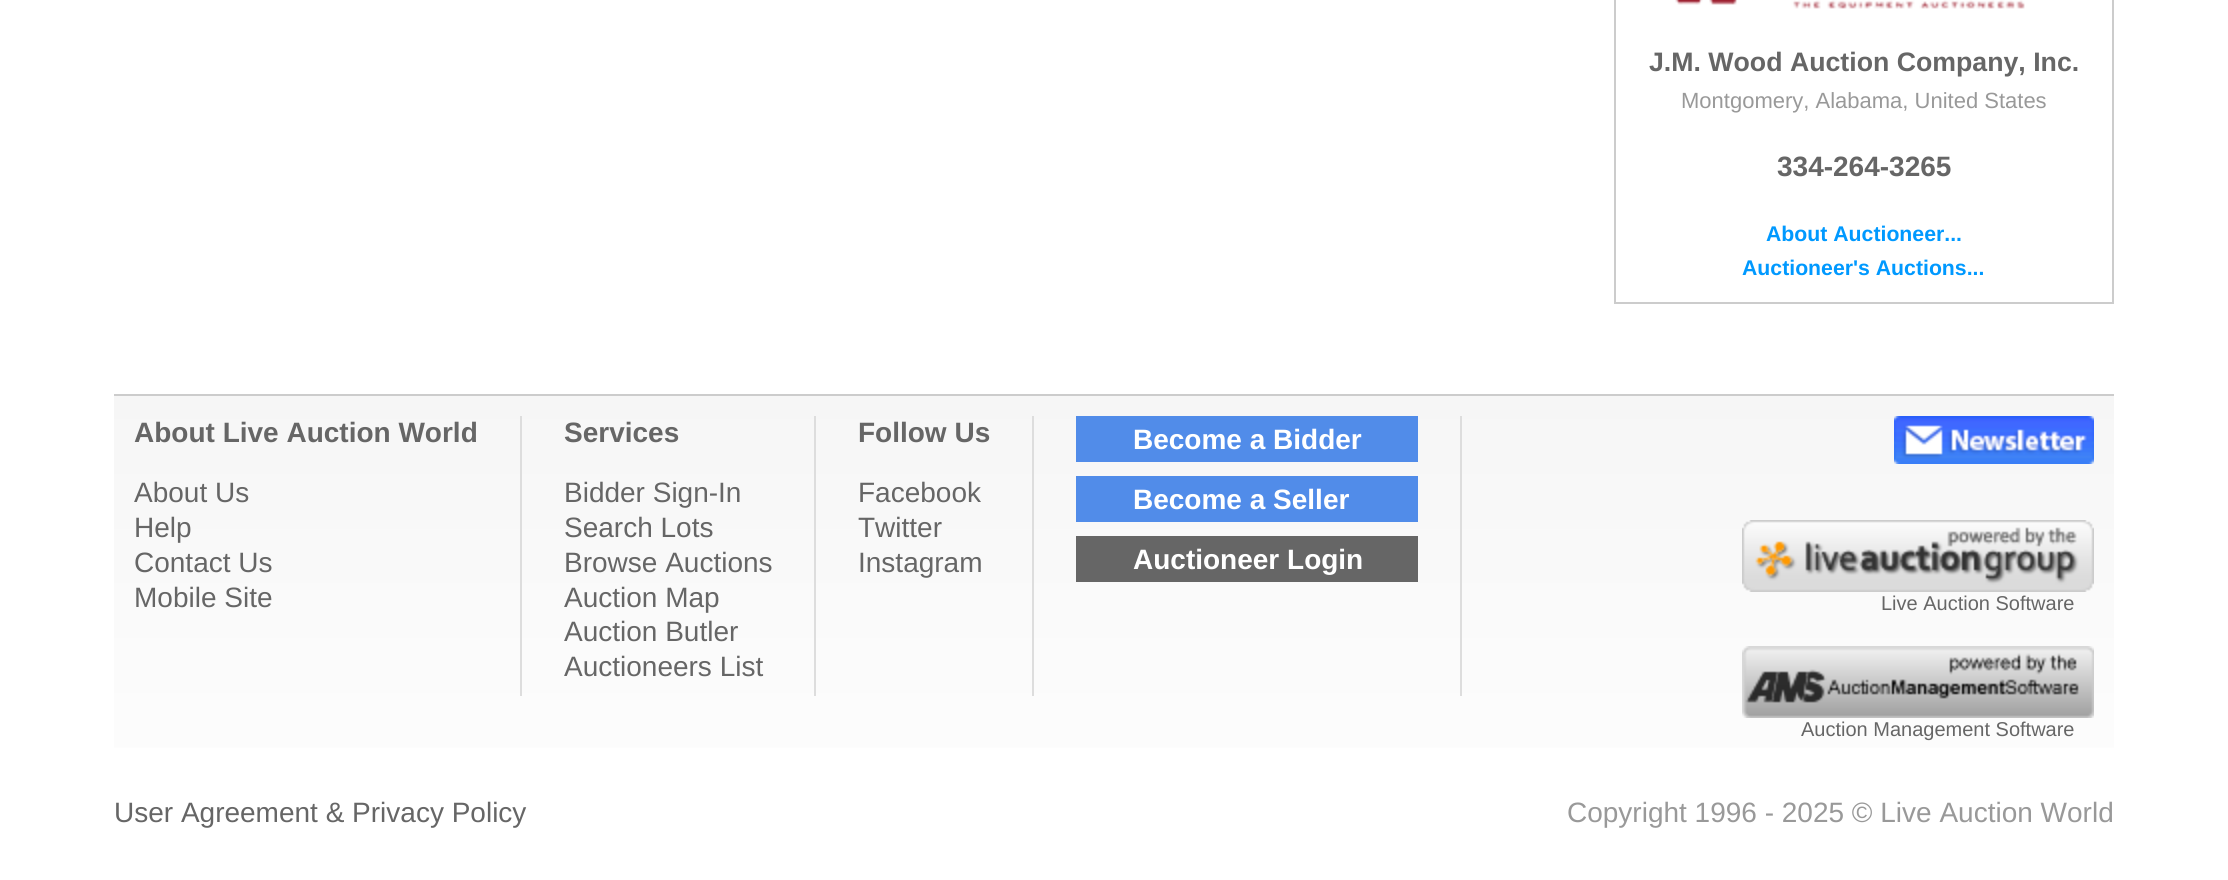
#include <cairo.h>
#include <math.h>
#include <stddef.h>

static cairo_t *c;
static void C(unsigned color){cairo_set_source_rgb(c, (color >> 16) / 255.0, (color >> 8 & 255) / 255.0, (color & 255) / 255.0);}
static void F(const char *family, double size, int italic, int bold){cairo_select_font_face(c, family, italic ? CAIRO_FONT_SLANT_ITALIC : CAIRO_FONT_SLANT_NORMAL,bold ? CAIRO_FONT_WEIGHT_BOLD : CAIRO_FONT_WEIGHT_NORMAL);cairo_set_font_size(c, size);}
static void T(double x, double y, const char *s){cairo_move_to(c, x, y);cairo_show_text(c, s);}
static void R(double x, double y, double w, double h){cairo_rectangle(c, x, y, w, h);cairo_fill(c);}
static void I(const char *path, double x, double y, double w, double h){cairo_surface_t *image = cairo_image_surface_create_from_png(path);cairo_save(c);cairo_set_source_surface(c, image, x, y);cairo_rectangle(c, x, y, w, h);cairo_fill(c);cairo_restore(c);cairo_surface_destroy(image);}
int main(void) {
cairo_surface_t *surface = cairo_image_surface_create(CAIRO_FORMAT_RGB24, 2228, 880);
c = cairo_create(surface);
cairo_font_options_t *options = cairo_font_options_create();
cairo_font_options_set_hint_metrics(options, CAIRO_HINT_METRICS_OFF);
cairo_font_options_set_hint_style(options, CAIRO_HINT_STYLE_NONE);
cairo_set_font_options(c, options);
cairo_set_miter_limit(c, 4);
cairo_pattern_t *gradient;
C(0xffffff);
cairo_paint(c);
C(0xcccccc);
R(2112,0,2,304);
R(1614,302,500,2);
R(1614,0,2,304);
I("1.png",1675,0,350,9);
F("Liberation Sans",26.7,0,1);
C(0x666666);
T(1649,71,"J.M. Wood Auction Company, Inc.");
F("Liberation Sans",22,0,0);
C(0x999999);
T(1681,108,"Montgomery, Alabama, United States");
F("Liberation Sans",28,0,1);
C(0x666666);
T(1777,176,"334-264-3265");
F("Liberation Sans",21.25,0,1);
C(0x0099ff);
T(1766,241,"About Auctioneer...");
T(1742,275,"Auctioneer's Auctions...");
gradient = cairo_pattern_create_linear(1114,396,1114,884);
cairo_pattern_add_color_stop_rgba(gradient,0,0.965,0.965,0.965,1);
cairo_pattern_add_color_stop_rgba(gradient,1,1,1,1,1);
cairo_set_source(c,gradient);
cairo_pattern_destroy(gradient);
R(114,396,2000,352);
C(0xcccccc);
R(114,394,2000,2);
C(0xdddddd);
R(520,416,2,280);
F("Liberation Sans",28,0,1);
C(0x666666);
T(134,442,"About Live Auction World");
F("Liberation Sans",28,0,0);
T(134,502,"About Us");
T(134,537,"Help");
T(134,572,"Contact Us");
T(134,607,"Mobile Site");
C(0xdddddd);
R(814,416,2,280);
F("Liberation Sans",28,0,1);
C(0x666666);
T(564,442,"Services");
F("Liberation Sans",28,0,0);
T(564,502,"Bidder Sign-In");
T(564,537,"Search Lots");
T(564,572,"Browse Auctions");
T(564,607,"Auction Map");
T(564,641,"Auction Butler");
T(564,676,"Auctioneers List");
C(0xdddddd);
R(1032,416,2,280);
F("Liberation Sans",28,0,1);
C(0x666666);
T(858,442,"Follow Us");
F("Liberation Sans",28,0,0);
T(858,502,"Facebook");
T(858,537,"Twitter");
T(858,572,"Instagram");
C(0xdddddd);
R(1460,416,2,280);
C(0x518ce9);
R(1076,416,342,46);
F("Liberation Sans",28,0,1);
C(0xffffff);
T(1133,449,"Become a Bidder");
C(0x518ce9);
R(1076,476,342,46);
C(0xffffff);
T(1133,509,"Become a Seller");
C(0x666666);
R(1076,536,342,46);
C(0xffffff);
T(1133,569,"Auctioneer Login");
I("2.png",1894,416,200,48);
I("3.png",1742,520,352,72);
F("Liberation Sans",20,0,0);
C(0x666666);
T(1881,610,"Live Auction Software");
I("4.png",1742,646,352,72);
T(1801,736,"Auction Management Software");
F("Liberation Sans",28,0,0);
T(114,822,"User Agreement & Privacy Policy");
C(0x999999);
T(1567,822,"Copyright 1996 - 2025 © Live Auction World");
cairo_surface_write_to_png(surface, "o.png");
cairo_font_options_destroy(options);
cairo_destroy(c);
cairo_surface_destroy(surface);
return 0;
}
